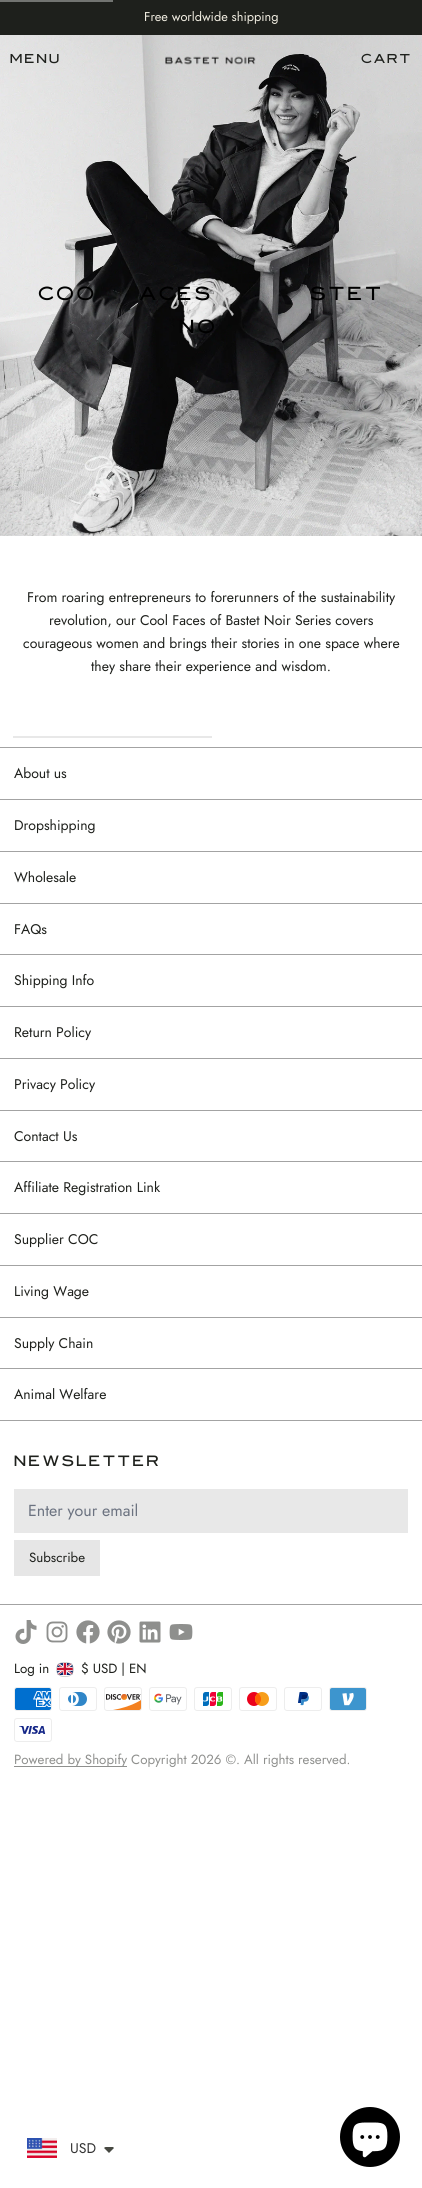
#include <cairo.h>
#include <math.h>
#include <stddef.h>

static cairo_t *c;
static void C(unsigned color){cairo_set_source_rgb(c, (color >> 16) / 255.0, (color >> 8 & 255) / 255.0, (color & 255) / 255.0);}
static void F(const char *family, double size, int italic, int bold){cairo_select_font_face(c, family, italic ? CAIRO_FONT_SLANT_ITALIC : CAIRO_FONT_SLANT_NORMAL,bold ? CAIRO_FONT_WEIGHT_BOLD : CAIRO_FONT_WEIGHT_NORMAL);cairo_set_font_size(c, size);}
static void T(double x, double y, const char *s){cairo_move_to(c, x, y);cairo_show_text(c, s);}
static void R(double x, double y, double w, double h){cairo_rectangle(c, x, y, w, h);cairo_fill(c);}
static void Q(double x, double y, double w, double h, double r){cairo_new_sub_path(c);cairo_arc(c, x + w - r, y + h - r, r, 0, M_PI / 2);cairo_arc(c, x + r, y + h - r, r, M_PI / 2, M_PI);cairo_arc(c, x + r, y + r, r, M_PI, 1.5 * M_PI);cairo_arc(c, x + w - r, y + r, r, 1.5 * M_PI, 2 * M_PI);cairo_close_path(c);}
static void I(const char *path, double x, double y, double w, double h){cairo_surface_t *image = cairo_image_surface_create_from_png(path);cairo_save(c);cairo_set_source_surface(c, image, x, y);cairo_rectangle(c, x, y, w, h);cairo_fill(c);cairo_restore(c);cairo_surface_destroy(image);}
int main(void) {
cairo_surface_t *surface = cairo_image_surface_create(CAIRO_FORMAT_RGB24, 422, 2188);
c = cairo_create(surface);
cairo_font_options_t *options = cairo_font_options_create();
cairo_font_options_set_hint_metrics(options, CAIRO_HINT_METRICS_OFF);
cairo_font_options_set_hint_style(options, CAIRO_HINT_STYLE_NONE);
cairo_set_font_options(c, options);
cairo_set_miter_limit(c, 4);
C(0xffffff);
cairo_paint(c);
C(0x1e201c);
R(0,0,422,35);
C(0x727471);
R(0,0,113,2);
F("Jost",12.75,0,0);
C(0xf2eee2);
T(144,21,"Free worldwide shipping");
I("2.png",0,35,422,501);
F("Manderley",14,0,0);
C(0x1e201c);
T(10,63,"Menu");
I("1.png",165,56,91,9);
T(361,63,"Cart");
F("Manderley",20.5,0,0);
C(0x000000);
T(38,300,"Coo");
T(139,300,"aces");
T(310,300,"stet");
T(179,333,"No");
F("Jost",14,0,0);
C(0x1e201c);
T(27,602,"From roaring entrepreneurs to forerunners of the sustainability");
T(49,625,"revolution, our Cool Faces of Bastet Noir Series covers");
T(23,648,"courageous women and brings their stories in one space where");
T(91,671,"they share their experience and wisdom.");
C(0xe8e8e8);
R(13,736,199,2);
C(0xa3a3a3);
R(0,747,422,1);
R(0,799,422,1);
C(0x1e201c);
T(14,778,"About us");
C(0xa3a3a3);
R(0,851,422,1);
C(0x1e201c);
T(14,830,"Dropshipping");
C(0xa3a3a3);
R(0,903,422,1);
C(0x1e201c);
T(14,882,"Wholesale");
C(0xa3a3a3);
R(0,954,422,1);
C(0x1e201c);
T(14,934,"FAQs");
C(0xa3a3a3);
R(0,1006,422,1);
C(0x1e201c);
T(14,985,"Shipping Info");
C(0xa3a3a3);
R(0,1058,422,1);
C(0x1e201c);
T(14,1037,"Return Policy");
C(0xa3a3a3);
R(0,1110,422,1);
C(0x1e201c);
T(14,1089,"Privacy Policy");
C(0xa3a3a3);
R(0,1161,422,1);
C(0x1e201c);
T(14,1141,"Contact Us");
C(0xa3a3a3);
R(0,1213,422,1);
C(0x1e201c);
T(14,1192,"Affiliate Registration Link");
C(0xa3a3a3);
R(0,1265,422,1);
C(0x1e201c);
T(14,1244,"Supplier COC");
C(0xa3a3a3);
R(0,1317,422,1);
C(0x1e201c);
T(14,1296,"Living Wage");
C(0xa3a3a3);
R(0,1368,422,1);
C(0x1e201c);
T(14,1348,"Supply Chain");
C(0xa3a3a3);
R(0,1420,422,1);
C(0x1e201c);
T(14,1399,"Animal Welfare");
C(0xa3a3a3);
R(0,1604,422,1);
F("Manderley",16.25,0,0);
C(0x1e201c);
T(14,1466,"Newsletter");
C(0xe8e8e8);
R(14,1489,394,44);
F("Jost",16,0,0);
C(0x6b7280);
T(28,1516,"Enter your email");
C(0xe6e6e6);
R(14,1540,86,36);
F("Jost",13.3,0,0);
C(0x1e201c);
T(29,1562,"Subscribe");
I("3.png",15,1620,22,24);
I("4.png",46,1621,22,22);
I("5.png",76,1620,24,24);
I("6.png",107,1620,24,24);
I("7.png",139,1621,22,22);
I("8.png",169,1624,24,16);
T(14,1673,"Log in");
I("9.png",57,1663,16,12);
Q(56.5,1662.5,17,14,7);
cairo_set_source_rgba(c,0.702,0.702,0.702,0.6);
cairo_set_line_width(c,1);
cairo_stroke(c);
C(0x1e201c);
T(81,1673,"$ USD | EN");
I("10.png",14,1687,38,24);
I("11.png",59,1687,38,24);
I("12.png",104,1687,38,24);
I("13.png",149,1687,38,24);
I("14.png",194,1687,38,24);
I("15.png",239,1687,38,24);
I("16.png",284,1687,38,24);
I("17.png",329,1687,38,24);
I("18.png",14,1718,38,24);
C(0x8f908e);
R(14,1766,113,1);
T(14,1764,"Powered by Shopify Copyright 2026 ©. All rights reserved.");
I("19.png",27,2138,30,20);
F("Jost",14,0,0);
C(0x333333);
T(70,2153,"USD");
C(0x474942);
cairo_new_path(c);
cairo_move_to(c,106,2147);
cairo_curve_to(c,105,2147,104.5,2147.5,104,2148);
cairo_line_to(c,109,2153);
cairo_line_to(c,114,2148);
cairo_line_to(c,113,2147);
cairo_close_path(c);
cairo_fill(c);
C(0x000000);
cairo_arc(c,370,2137,30,0,2 * M_PI);
cairo_fill(c);
I("20.png",352,2122,36,36);
cairo_surface_write_to_png(surface, "o.png");
cairo_font_options_destroy(options);
cairo_destroy(c);
cairo_surface_destroy(surface);
return 0;
}
